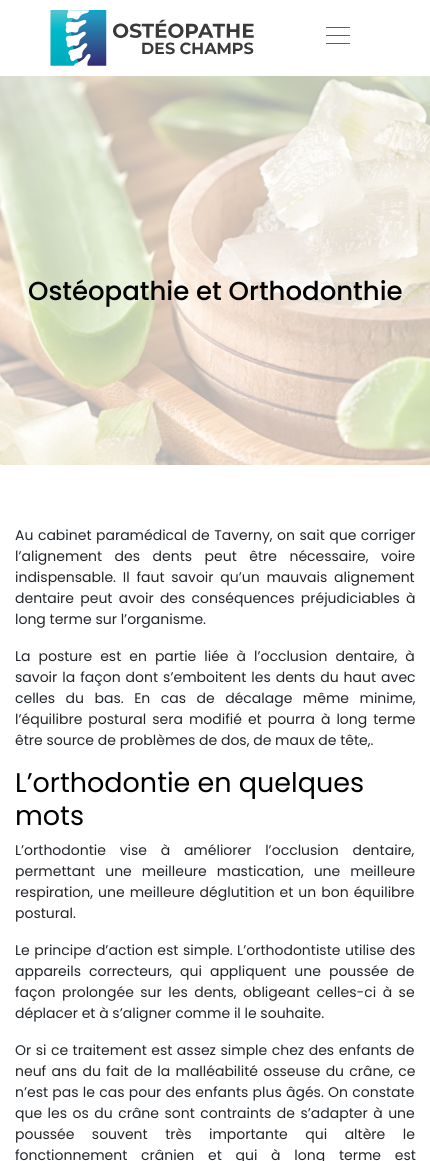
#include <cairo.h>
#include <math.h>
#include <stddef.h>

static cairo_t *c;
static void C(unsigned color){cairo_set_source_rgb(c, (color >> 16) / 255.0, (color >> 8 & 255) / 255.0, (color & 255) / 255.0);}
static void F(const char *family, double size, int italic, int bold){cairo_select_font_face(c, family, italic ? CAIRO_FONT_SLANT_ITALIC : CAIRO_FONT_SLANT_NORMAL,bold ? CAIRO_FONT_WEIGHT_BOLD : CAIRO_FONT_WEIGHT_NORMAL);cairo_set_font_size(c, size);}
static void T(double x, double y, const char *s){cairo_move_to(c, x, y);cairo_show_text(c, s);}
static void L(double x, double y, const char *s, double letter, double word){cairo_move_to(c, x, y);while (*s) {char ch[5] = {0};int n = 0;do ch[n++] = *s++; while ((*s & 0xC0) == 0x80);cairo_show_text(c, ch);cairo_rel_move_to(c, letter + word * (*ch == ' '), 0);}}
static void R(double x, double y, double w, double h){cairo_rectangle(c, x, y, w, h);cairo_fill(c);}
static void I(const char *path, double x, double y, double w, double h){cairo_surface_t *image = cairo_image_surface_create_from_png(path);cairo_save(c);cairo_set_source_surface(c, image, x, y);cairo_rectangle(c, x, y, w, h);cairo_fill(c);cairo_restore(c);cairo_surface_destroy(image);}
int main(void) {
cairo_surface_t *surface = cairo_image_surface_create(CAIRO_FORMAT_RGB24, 430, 1161);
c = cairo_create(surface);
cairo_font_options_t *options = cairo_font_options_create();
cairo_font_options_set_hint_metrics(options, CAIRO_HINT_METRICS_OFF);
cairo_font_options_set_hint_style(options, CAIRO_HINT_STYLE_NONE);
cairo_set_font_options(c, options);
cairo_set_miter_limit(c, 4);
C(0xffffff);
cairo_paint(c);
I("1.png",50,10,204,56);
C(0x3b55e6);
R(326,27,24,1);
R(326,35,24,1);
R(326,43,24,1);
I("2.png",0,76,430,389);
F("Poppins Medium",26,0,0);
C(0x000000);
T(28,300,"Ostéopathie et Orthodonthie");
F("Poppins",14,0,0);
C(0x212529);
L(15,540,"Au cabinet paramédical de Taverny, on sait que corriger",0,.75);
L(15,561,"l’alignement des dents peut être nécessaire, voire",0,8.75);
L(15,582,"indispensable. Il faut savoir qu’un mauvais alignement",0,3);
L(15,603,"dentaire peut avoir des conséquences préjudiciables à",0,2.5);
T(15,624,"long terme sur l’organisme.");
L(15,661,"La posture est en partie liée à l’occlusion dentaire, à",0,4.25);
L(15,682,"savoir la façon dont s’emboitent les dents du haut avec",0,1.25);
L(15,703,"celles du bas. En cas de décalage même minime,",0,6.75);
L(15,724,"l’équilibre postural sera modifié et pourra à long terme",0,2.25);
T(15,745,"être source de problèmes de dos, de maux de tête,.");
F("Poppins",27,0,0);
C(0x000000);
T(15,792,"L’orthodontie en quelques");
T(15,825,"mots");
F("Poppins",14,0,0);
C(0x212529);
L(15,855,"L’orthodontie vise à améliorer l’occlusion dentaire,",0,10);
L(15,876,"permettant une meilleure mastication, une meilleure",0,6.25);
L(15,897,"respiration, une meilleure déglutition et un bon équilibre",0,1.25);
T(15,918,"postural.");
L(15,955,"Le principe d’action est simple. L’orthodontiste utilise des",0,.75);
L(15,976,"appareils correcteurs, qui appliquent une poussée de",0,4.25);
L(15,997,"façon prolongée sur les dents, obligeant celles-ci à se",0,2.75);
T(15,1018,"déplacer et à s’aligner comme il le souhaite.");
L(15,1055,"Or si ce traitement est assez simple chez des enfants de",0,.75);
L(15,1076,"neuf ans du fait de la malléabilité osseuse du crâne, ce",0,1.5);
L(15,1097,"n’est pas le cas pour des enfants plus âgés. On constate",0,.5);
L(15,1118,"que les os du crâne sont contraints de s’adapter à une",0,1.75);
L(15,1139,"poussée souvent très importante qui altère le",0,13.75);
L(15,1160,"fonctionnement crânien et qui à long terme est",0,10);
cairo_surface_write_to_png(surface, "o.png");
cairo_font_options_destroy(options);
cairo_destroy(c);
cairo_surface_destroy(surface);
return 0;
}
